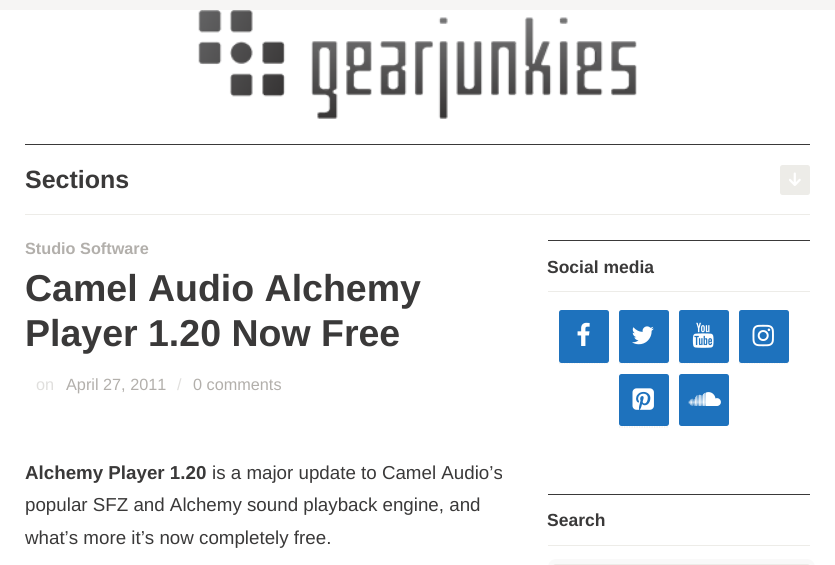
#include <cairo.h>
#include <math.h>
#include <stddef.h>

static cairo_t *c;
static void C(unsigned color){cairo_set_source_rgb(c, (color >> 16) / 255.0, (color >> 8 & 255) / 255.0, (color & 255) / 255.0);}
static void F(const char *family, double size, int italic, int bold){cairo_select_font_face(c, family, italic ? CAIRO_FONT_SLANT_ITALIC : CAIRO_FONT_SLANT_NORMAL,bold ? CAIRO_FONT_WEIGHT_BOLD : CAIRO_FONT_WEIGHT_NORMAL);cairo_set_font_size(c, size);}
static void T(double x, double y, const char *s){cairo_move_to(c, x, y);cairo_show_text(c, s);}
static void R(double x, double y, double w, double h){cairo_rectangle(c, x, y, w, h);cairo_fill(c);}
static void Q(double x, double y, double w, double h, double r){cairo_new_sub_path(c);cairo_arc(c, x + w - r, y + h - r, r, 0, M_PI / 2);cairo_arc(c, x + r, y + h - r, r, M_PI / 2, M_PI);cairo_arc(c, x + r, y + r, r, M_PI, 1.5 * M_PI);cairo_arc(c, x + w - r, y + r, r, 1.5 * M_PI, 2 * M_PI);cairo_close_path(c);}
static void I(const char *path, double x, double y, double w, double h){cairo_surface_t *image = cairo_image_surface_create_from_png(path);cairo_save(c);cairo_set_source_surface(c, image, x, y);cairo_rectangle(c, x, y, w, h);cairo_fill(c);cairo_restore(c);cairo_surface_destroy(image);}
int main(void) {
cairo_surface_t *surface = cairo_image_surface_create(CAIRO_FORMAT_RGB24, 835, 565);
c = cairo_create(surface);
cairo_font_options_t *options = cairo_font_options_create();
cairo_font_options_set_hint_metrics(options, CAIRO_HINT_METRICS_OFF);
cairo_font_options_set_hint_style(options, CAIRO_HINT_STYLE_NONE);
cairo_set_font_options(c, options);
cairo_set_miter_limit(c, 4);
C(0xf6f5f4);
cairo_paint(c);
C(0xffffff);
R(0,10,835,555);
I("1.png",198,10,439,109);
C(0x3a3939);
R(25,144,785,1);
C(0xedece8);
R(25,214,785,1);
F("Liberation Sans",25,0,1);
C(0x3a3939);
T(25,188,"Sections");
C(0xedece8);
Q(780,165,30,30,2.5);
cairo_fill(c);
I("2.png",789,172,12,14);
F("Liberation Sans",16.25,0,1);
C(0xb2afab);
T(25,254,"Studio Software");
F("Liberation Sans",37.5,0,1);
C(0x3a3939);
T(25,301,"Camel Audio Alchemy");
T(25,346,"Player 1.20 Now Free");
F("Liberation Sans",16.25,0,0);
C(0xe0dfdd);
T(36,390,"on");
C(0xb2afab);
T(66,390,"April 27, 2011");
C(0xe0dfdd);
T(177,390,"/");
C(0xb2afab);
T(193,390,"0 comments");
F("Liberation Sans",18.75,0,1);
C(0x3a3939);
T(25,479,"Alchemy Player 1.20");
F("Liberation Sans",18.75,0,0);
T(212,479,"is a major update to Camel Audio’s");
T(25,511,"popular SFZ and Alchemy sound playback engine, and");
T(25,544,"what’s more it’s now completely free.");
R(548,240,262,1);
C(0xedece8);
R(548,291,262,1);
F("Liberation Sans",17.5,0,1);
C(0x3a3939);
T(547,273,"Social media");
cairo_new_path(c);
cairo_move_to(c,559,363);
cairo_line_to(c,609,363);
C(0xedece8);
cairo_set_line_width(c,1.2);
cairo_set_dash(c,(double[]){1.25,1.25},2,0);
cairo_stroke(c);
C(0x1e72bd);
Q(559,310,50,53,2.5);
cairo_fill(c);
I("3.png",577,322,13,24);
cairo_new_path(c);
cairo_move_to(c,619,363);
cairo_line_to(c,669,363);
C(0xedece8);
cairo_stroke(c);
C(0x1e72bd);
Q(619,310,50,53,2.5);
cairo_fill(c);
I("4.png",632,326,22,19);
cairo_new_path(c);
cairo_move_to(c,679,363);
cairo_line_to(c,729,363);
C(0xedece8);
cairo_stroke(c);
C(0x1e72bd);
Q(679,310,50,53,2.5);
cairo_fill(c);
I("5.png",692,322,22,26);
cairo_new_path(c);
cairo_move_to(c,739,363);
cairo_line_to(c,789,363);
C(0xedece8);
cairo_stroke(c);
C(0x1e72bd);
Q(739,310,50,53,2.5);
cairo_fill(c);
I("6.png",752,324,22,23);
cairo_new_path(c);
cairo_move_to(c,619,427);
cairo_line_to(c,669,427);
C(0xedece8);
cairo_stroke(c);
C(0x1e72bd);
Q(619,374,50,52,2.5);
cairo_fill(c);
I("7.png",632,388,22,22);
Q(679,374,50,52,2.5);
cairo_fill(c);
I("8.png",688,392,33,14);
C(0x3a3939);
R(548,494,262,1);
C(0xedece8);
R(548,545,262,1);
C(0x3a3939);
T(547,526,"Search");
Q(550.5,561.5,262,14,5.5);
C(0xf9f9f9);
cairo_set_line_width(c,5);
cairo_set_dash(c,NULL,0,0);
cairo_stroke(c);
Q(553.5,564.5,256,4,2);
C(0xedece8);
cairo_set_line_width(c,1);
cairo_stroke(c);
cairo_surface_write_to_png(surface, "o.png");
cairo_font_options_destroy(options);
cairo_destroy(c);
cairo_surface_destroy(surface);
return 0;
}
